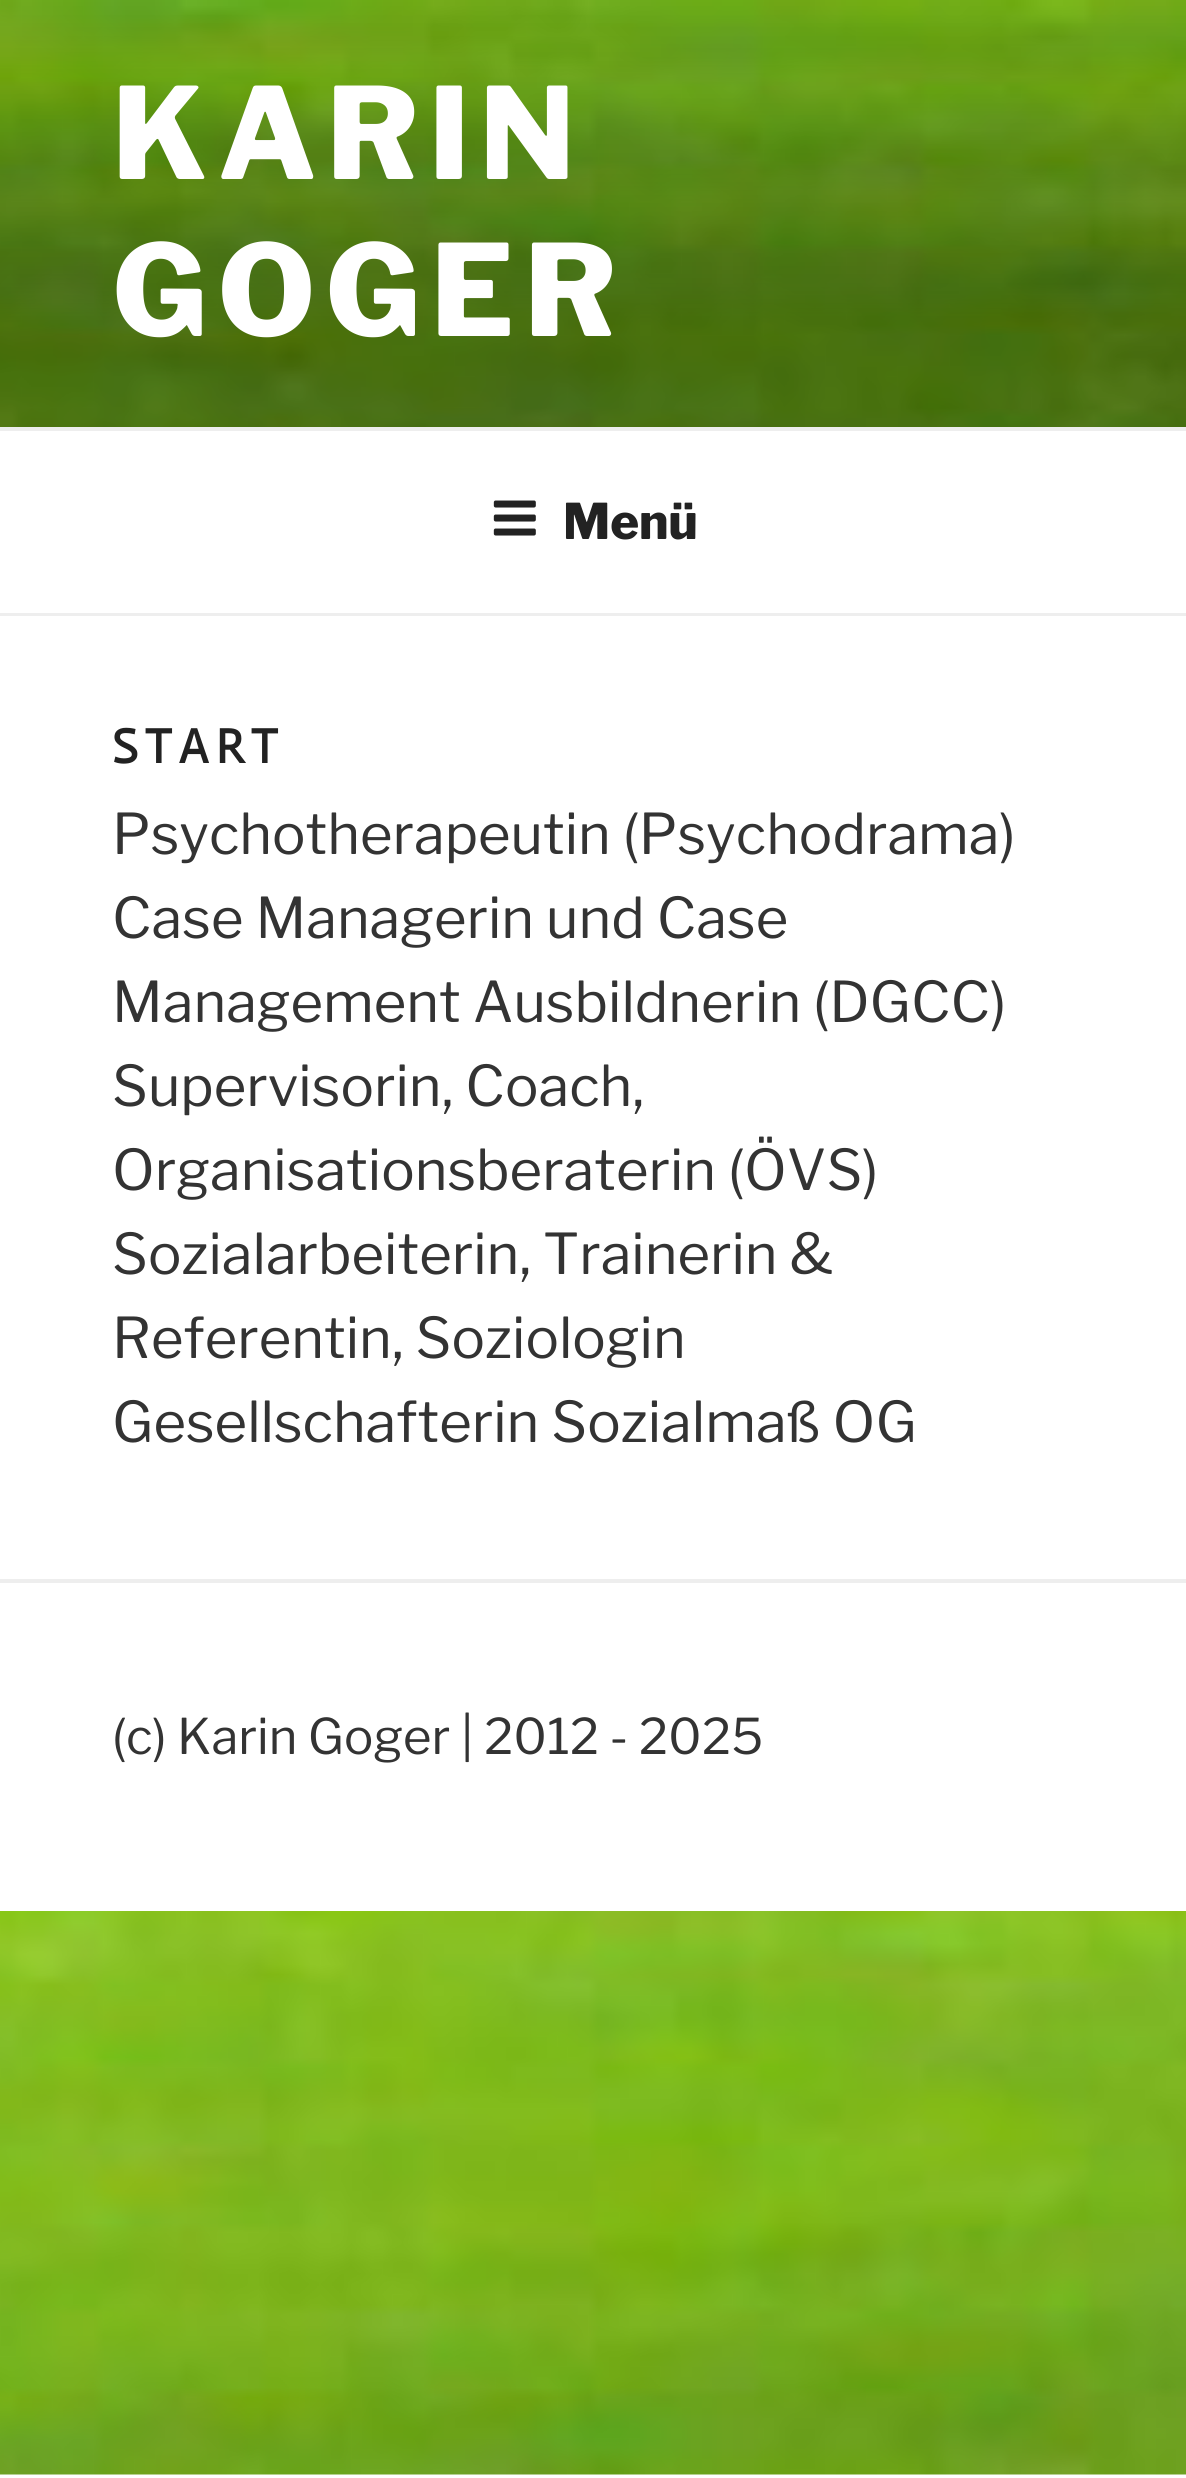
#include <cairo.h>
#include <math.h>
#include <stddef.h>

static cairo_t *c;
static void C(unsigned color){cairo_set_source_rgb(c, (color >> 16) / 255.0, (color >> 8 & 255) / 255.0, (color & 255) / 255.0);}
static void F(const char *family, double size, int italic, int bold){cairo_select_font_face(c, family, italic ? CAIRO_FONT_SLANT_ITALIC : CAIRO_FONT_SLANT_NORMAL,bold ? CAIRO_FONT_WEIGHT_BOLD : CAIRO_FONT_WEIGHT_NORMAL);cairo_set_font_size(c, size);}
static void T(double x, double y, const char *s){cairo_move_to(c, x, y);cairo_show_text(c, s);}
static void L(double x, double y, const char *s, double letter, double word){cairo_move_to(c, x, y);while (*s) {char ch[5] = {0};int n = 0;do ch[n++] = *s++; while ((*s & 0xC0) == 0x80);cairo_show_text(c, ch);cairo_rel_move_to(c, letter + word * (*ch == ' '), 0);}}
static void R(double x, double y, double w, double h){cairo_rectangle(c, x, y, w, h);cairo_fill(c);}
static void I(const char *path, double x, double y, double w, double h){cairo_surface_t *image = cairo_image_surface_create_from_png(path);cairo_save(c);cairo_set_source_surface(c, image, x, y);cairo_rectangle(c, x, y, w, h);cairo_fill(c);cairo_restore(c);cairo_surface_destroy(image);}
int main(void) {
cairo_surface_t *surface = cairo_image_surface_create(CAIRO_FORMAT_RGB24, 1186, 2478);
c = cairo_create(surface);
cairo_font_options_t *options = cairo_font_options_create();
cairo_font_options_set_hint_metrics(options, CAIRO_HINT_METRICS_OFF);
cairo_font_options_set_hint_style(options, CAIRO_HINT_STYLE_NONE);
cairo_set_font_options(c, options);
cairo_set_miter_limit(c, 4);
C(0xffffff);
cairo_paint(c);
I("1.png",0,0,1186,2475);
F("Libre Franklin ExtraBold",126,0,0);
C(0xffffff);
L(112,179,"KARIN",10,0);
L(112,336,"GOGER",10,0);
R(0,431,1186,182);
C(0xeeeeee);
R(0,427,1186,4);
R(0,613,1186,3);
I("2.png",493,500,43,36);
F("Libre Franklin ExtraBold",49,0,0);
C(0x222222);
T(563,539,"Menü");
C(0xffffff);
R(0,616,1186,1295);
F("Actor",49,0,1);
C(0x222222);
L(112,763,"START",7,0);
F("Libre Franklin Thin",56,0,0);
C(0x333333);
T(112,854,"Psychotherapeutin (Psychodrama)");
T(112,938,"Case Managerin und Case");
T(112,1022,"Management Ausbildnerin (DGCC)");
T(112,1106,"Supervisorin, Coach,");
T(112,1190,"Organisationsberaterin (ÖVS)");
T(112,1274,"Sozialarbeiterin, Trainerin &");
T(112,1358,"Referentin, Soziologin");
T(112,1442,"Gesellschafterin Sozialmaß OG");
C(0xeeeeee);
R(0,1579,1186,4);
F("Libre Franklin Thin",49,0,0);
C(0x333333);
T(112,1754,"(c) Karin Goger | 2012 - 2025");
cairo_surface_write_to_png(surface, "o.png");
cairo_font_options_destroy(options);
cairo_destroy(c);
cairo_surface_destroy(surface);
return 0;
}
